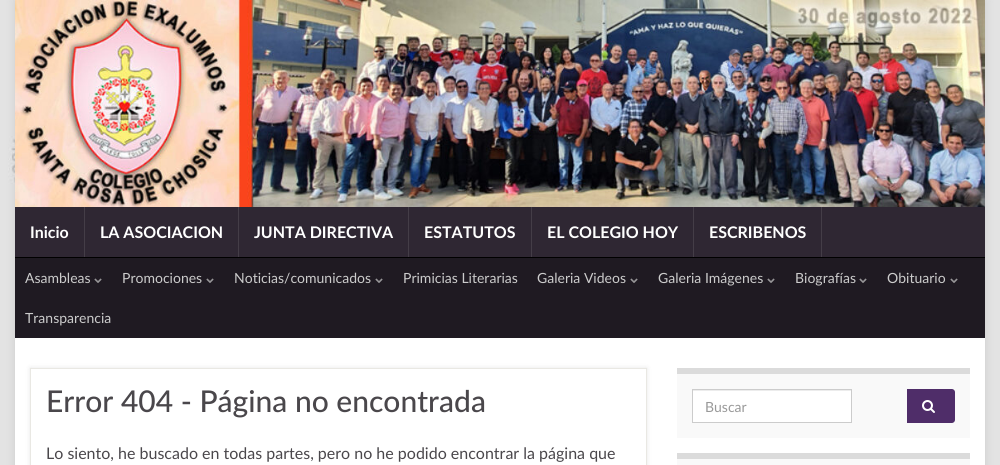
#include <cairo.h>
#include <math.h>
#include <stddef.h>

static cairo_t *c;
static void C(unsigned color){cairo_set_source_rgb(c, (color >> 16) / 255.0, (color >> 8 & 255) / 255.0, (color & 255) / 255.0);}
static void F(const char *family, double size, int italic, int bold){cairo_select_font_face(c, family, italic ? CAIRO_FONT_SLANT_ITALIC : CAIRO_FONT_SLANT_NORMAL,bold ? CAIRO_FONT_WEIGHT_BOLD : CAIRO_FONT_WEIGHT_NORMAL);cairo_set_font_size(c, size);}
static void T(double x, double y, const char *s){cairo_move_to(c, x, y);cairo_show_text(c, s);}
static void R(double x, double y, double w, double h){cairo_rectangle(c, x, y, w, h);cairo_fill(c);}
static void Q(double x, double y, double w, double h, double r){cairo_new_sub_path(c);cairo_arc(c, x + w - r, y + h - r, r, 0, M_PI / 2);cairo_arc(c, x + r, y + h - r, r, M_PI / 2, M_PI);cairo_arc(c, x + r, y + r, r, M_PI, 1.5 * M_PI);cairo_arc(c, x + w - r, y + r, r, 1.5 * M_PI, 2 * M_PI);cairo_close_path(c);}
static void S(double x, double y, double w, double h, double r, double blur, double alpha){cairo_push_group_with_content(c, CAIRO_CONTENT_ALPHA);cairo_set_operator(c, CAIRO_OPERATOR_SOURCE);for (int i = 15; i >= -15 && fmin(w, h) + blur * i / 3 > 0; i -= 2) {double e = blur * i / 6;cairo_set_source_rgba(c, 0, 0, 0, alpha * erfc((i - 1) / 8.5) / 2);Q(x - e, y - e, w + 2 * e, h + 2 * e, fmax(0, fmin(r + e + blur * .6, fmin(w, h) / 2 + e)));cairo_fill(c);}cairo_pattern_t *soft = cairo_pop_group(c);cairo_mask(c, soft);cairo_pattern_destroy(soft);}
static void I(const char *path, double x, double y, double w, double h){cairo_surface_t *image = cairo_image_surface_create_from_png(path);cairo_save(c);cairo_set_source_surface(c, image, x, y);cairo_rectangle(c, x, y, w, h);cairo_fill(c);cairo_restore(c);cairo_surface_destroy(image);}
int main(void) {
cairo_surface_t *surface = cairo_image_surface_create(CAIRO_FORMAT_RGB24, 1000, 465);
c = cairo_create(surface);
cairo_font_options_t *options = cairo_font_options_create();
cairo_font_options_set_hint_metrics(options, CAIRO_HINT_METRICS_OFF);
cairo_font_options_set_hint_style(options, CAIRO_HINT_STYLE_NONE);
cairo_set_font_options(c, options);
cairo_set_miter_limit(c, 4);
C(0xffffff);
cairo_paint(c);
I("1.png",0,0,1000,465);
C(0x000000);
S(15,0,970,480,0,5,.1);
I("2.png",15,0,970,207);
C(0x2f2733);
R(15,207,970,50);
C(0x443d47);
R(84,207,1,50);
F("Lato",16,0,1);
C(0xffffff);
T(30,238,"Inicio");
C(0x443d47);
R(238,207,1,50);
C(0xffffff);
T(100,238,"LA ASOCIACION");
C(0x443d47);
R(408,207,1,50);
C(0xffffff);
T(254,238,"JUNTA DIRECTIVA");
C(0x443d47);
R(531,207,1,50);
C(0xffffff);
T(424,238,"ESTATUTOS");
C(0x443d47);
R(693,207,1,50);
C(0xffffff);
T(547,238,"EL COLEGIO HOY");
C(0x443d47);
R(821,207,1,50);
C(0xffffff);
T(709,238,"ESCRIBENOS");
C(0x1f1a22);
R(15,258,970,80);
C(0x000000);
R(15,257,970,1);
F("Lato",14,0,0);
C(0xcccccc);
T(25,283,"Asambleas");
I("3.png",94,278,8,5);
T(122,283,"Promociones");
I("3.png",206,278,8,5);
T(234,283,"Noticias/comunicados");
I("3.png",375,278,8,5);
T(403,283,"Primicias Literarias");
T(537,283,"Galeria Videos");
I("3.png",630,278,8,5);
T(658,283,"Galeria Imágenes");
I("3.png",767,278,8,5);
T(795,283,"Biografías");
I("3.png",859,278,8,5);
T(887,283,"Obituario");
I("3.png",950,278,8,5);
T(25,323,"Transparencia");
C(0xffffff);
R(15,338,970,127);
cairo_save(c);
cairo_set_fill_rule(c,CAIRO_FILL_RULE_EVEN_ODD);
cairo_new_path(c);
cairo_move_to(c,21,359);
cairo_line_to(c,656,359);
cairo_line_to(c,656,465);
cairo_line_to(c,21,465);
cairo_close_path(c);
cairo_move_to(c,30,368);
cairo_line_to(c,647,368);
cairo_line_to(c,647,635);
cairo_line_to(c,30,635);
cairo_close_path(c);
cairo_clip(c);
C(0x000000);
S(30,368,617,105,0,2.5,.1);
cairo_restore(c);
cairo_rectangle(c,30.5,368.5,616,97);
C(0xe9e8e3);
cairo_set_line_width(c,1);
cairo_stroke(c);
F("Lato Medium",30,0,0);
C(0x4a474b);
T(46,412,"Error 404 - Página no encontrada");
F("Lato",16,0,0);
T(46,459,"Lo siento, he buscado en todas partes, pero no he podido encontrar la página que");
C(0xf9f9f9);
R(677,374,293,64);
C(0xdbdbdb);
R(677,368,293,6);
C(0xffffff);
R(693,391,158,31);
C(0xececec);
R(693,390,158,1);
cairo_rectangle(c,692.5,389.5,159,33);
C(0xcccccc);
cairo_stroke(c);
F("Lato",14,0,0);
C(0x999999);
T(705,412,"Buscar");
C(0x4f2d69);
cairo_new_path(c);
cairo_move_to(c,907,389);
cairo_line_to(c,952,389);
cairo_curve_to(c,953.5,389,955,390.5,955,392);
cairo_line_to(c,955,420);
cairo_curve_to(c,955,421.5,953.5,423,952,423);
cairo_line_to(c,907,423);
cairo_close_path(c);
cairo_fill(c);
I("4.png",922,400,13,13);
C(0xf9f9f9);
R(677,459,293,6);
C(0xdbdbdb);
R(677,453,293,6);
cairo_surface_write_to_png(surface, "o.png");
cairo_font_options_destroy(options);
cairo_destroy(c);
cairo_surface_destroy(surface);
return 0;
}
